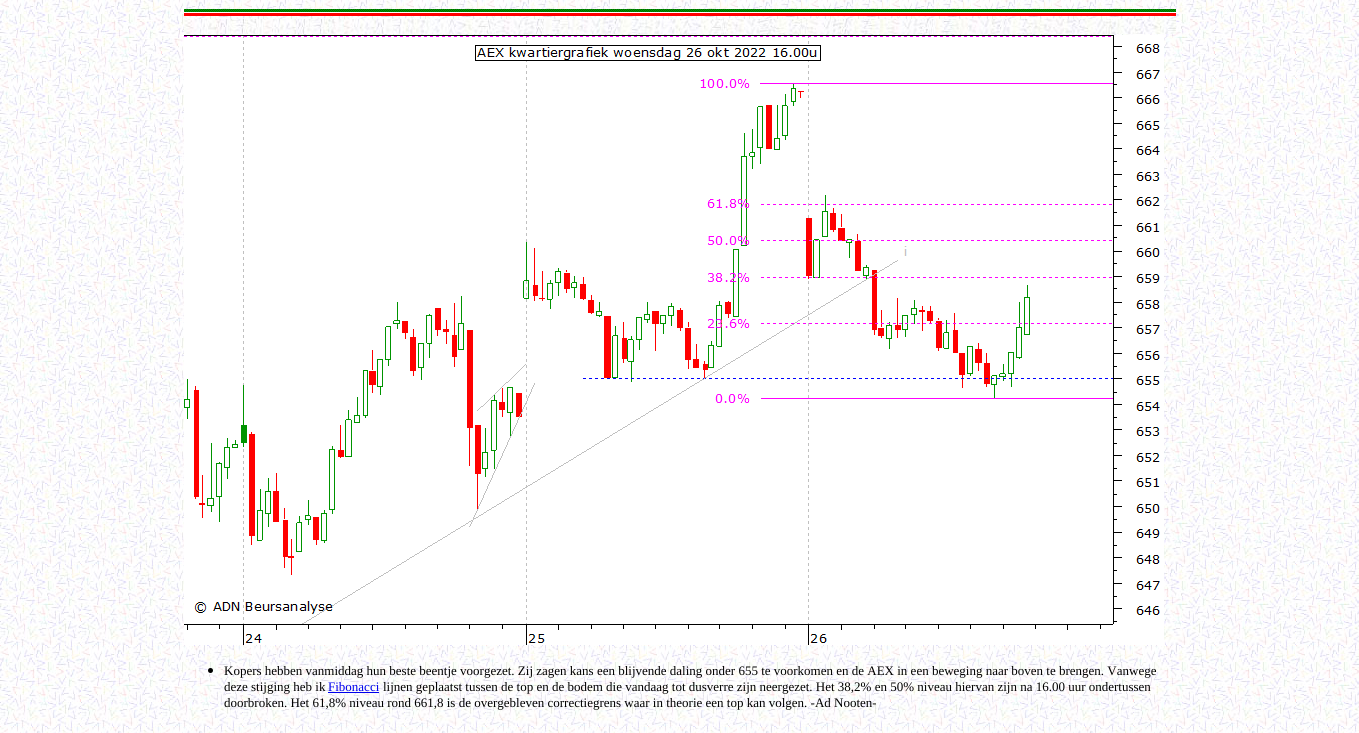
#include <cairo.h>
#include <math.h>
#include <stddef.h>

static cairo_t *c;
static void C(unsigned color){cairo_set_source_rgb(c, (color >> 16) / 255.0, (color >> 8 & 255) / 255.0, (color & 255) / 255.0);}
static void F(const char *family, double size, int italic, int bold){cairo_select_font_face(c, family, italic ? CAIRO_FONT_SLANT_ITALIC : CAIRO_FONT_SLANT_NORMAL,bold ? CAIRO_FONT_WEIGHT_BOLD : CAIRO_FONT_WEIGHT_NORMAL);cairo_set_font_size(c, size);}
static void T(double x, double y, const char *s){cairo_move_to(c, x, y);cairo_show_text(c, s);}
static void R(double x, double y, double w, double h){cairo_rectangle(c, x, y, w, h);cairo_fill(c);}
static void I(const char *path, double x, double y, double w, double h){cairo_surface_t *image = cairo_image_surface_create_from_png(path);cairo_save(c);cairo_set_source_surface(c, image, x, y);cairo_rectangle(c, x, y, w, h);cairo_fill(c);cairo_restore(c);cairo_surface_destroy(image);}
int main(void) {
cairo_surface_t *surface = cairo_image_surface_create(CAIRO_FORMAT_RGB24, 1359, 733);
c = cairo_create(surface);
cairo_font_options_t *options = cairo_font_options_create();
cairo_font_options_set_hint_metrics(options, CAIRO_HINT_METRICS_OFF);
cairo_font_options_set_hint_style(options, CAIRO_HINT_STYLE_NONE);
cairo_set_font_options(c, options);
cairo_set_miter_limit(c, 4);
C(0xffffff);
cairo_paint(c);
I("1.png",0,0,1359,733);
I("2.png",184,9,992,7);
I("3.png",184,19,992,15);
I("4.png",184,35,980,610);
C(0x000000);
cairo_arc(c,210.5,670.5,2.5,0,2 * M_PI);
cairo_fill(c);
F("Liberation Serif",13,0,0);
T(224,675,"Kopers hebben vanmiddag hun beste beentje voorgezet. Zij zagen kans een blijvende daling onder 655 te voorkomen en de AEX in een beweging naar boven te brengen. Vanwege");
T(224,691,"deze stijging heb ik");
C(0x0000ee);
T(328,691,"Fibonacci");
R(328,692,51,1);
C(0x000000);
T(383,691,"lijnen geplaatst tussen de top en de bodem die vandaag tot dusverre zijn neergezet. Het 38,2% en 50% niveau hiervan zijn na 16.00 uur ondertussen");
T(224,707,"doorbroken. Het 61,8% niveau rond 661,8 is de overgebleven correctiegrens waar in theorie een top kan volgen. -Ad Nooten-");
cairo_surface_write_to_png(surface, "o.png");
cairo_font_options_destroy(options);
cairo_destroy(c);
cairo_surface_destroy(surface);
return 0;
}
